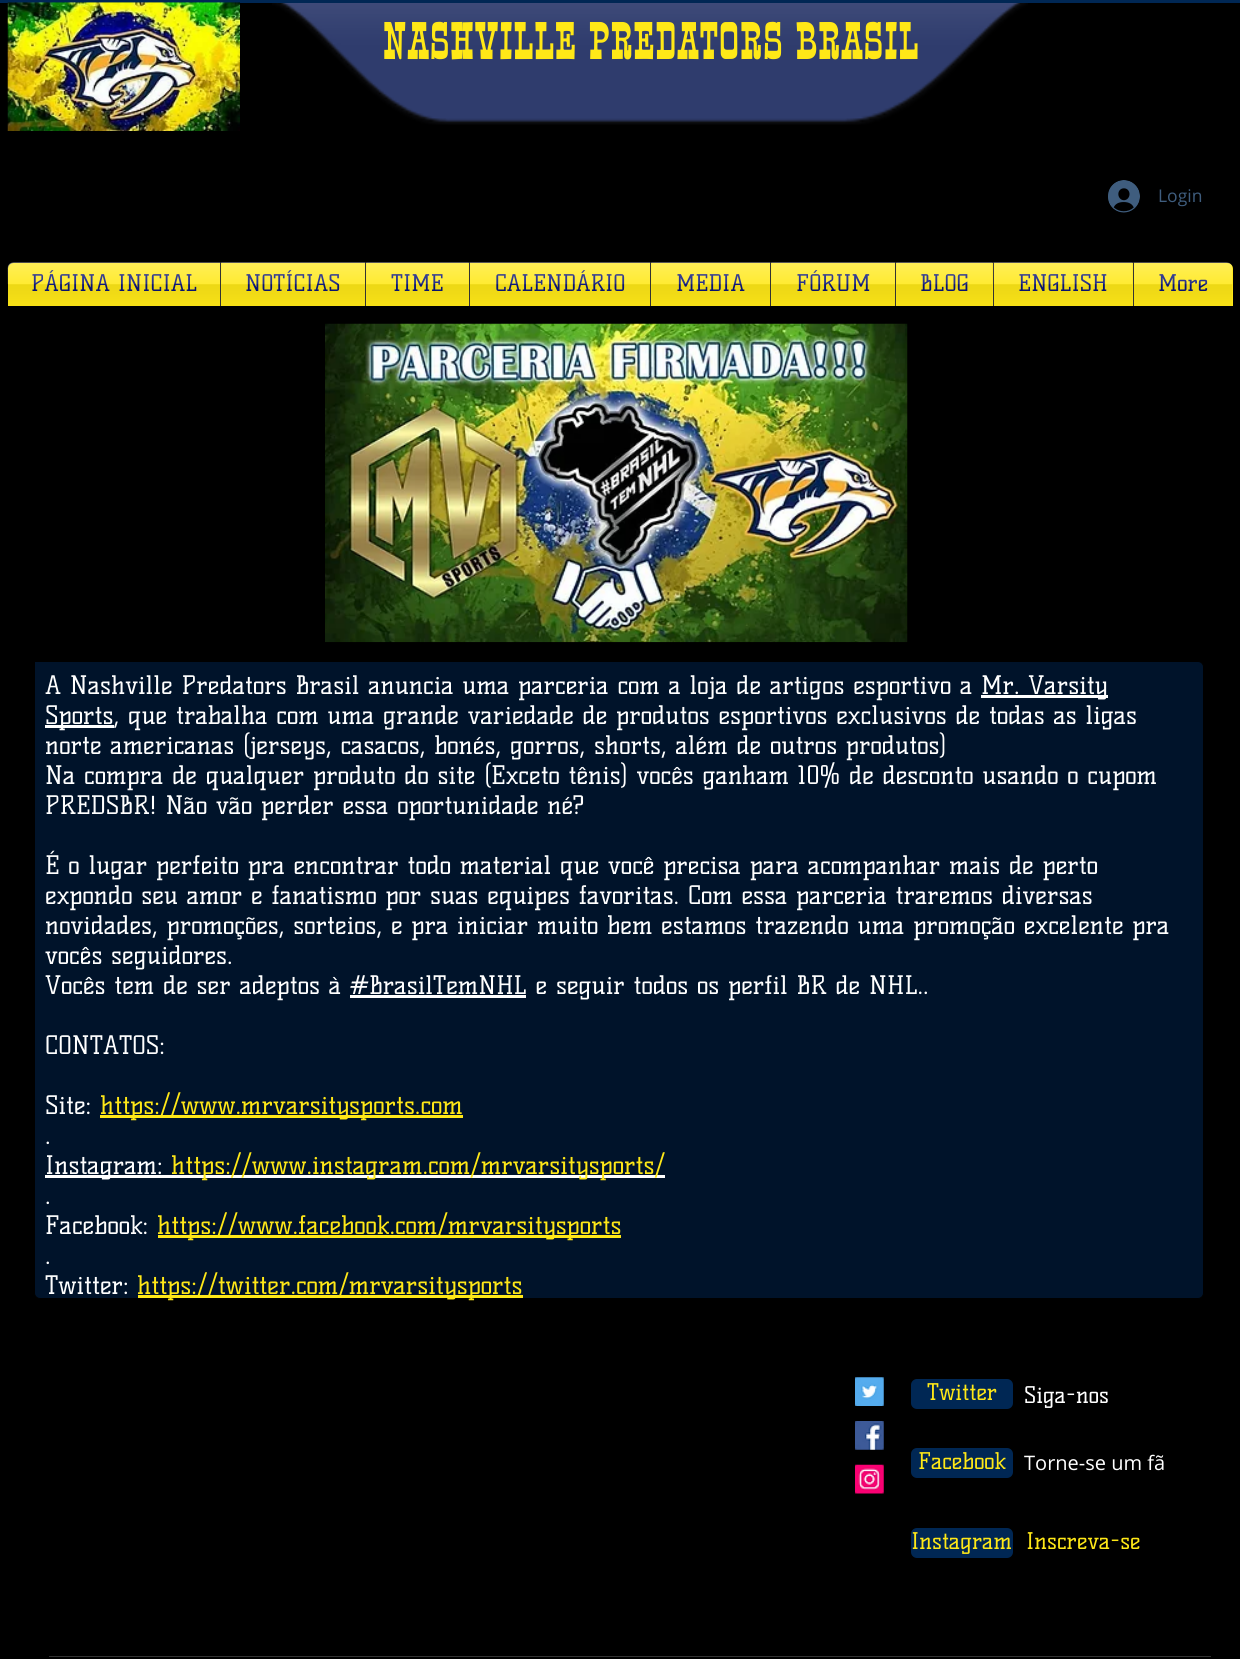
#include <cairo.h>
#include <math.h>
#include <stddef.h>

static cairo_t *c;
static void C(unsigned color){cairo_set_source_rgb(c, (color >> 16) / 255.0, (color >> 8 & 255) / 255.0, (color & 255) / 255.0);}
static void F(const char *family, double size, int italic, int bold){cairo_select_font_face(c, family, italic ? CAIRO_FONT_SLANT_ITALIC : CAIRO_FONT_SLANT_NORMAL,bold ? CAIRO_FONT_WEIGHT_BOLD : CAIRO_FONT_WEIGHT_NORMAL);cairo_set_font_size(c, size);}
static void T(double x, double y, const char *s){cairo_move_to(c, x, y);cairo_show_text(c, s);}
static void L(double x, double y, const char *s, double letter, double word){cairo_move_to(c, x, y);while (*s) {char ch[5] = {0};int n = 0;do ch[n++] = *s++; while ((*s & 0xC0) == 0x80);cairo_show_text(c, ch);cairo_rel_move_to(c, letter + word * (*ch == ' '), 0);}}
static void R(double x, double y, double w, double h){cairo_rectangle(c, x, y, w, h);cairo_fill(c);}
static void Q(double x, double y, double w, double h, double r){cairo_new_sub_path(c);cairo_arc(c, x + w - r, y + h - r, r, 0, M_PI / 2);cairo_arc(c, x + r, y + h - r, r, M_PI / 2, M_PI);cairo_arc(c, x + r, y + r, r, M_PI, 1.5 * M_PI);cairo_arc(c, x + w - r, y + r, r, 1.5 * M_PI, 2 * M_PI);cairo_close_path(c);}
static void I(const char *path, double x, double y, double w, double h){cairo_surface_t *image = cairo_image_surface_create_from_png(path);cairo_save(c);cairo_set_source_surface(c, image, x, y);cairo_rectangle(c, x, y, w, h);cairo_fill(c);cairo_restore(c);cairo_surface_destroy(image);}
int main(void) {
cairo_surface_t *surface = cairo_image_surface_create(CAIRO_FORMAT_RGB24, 1240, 1659);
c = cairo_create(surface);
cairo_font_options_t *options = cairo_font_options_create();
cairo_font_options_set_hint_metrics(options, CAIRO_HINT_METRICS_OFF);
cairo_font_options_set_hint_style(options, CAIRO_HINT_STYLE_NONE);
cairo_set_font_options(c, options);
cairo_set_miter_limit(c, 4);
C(0x000000);
cairo_paint(c);
C(0x002754);
R(0,0,1240,3);
I("1.png",7,2,233,129);
I("2.png",272,3,756,122);
F("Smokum",47.5,0,1);
C(0xffe817);
L(383,59,"NASHVILLE PREDATORS BRASIL",2.4,0);
I("3.png",1108,180,32,33);
F("Open Sans",17.5,0,0);
C(0x3f5d7e);
T(1158,202,"Login");
I("4.png",7,262,1226,22);
C(0xffe817);
cairo_new_path(c);
cairo_move_to(c,14,263);
cairo_line_to(c,220,263);
cairo_line_to(c,220,306);
cairo_line_to(c,8,306);
cairo_line_to(c,8,269);
cairo_curve_to(c,8,265.5,10.5,263,14,263);
cairo_close_path(c);
cairo_fill(c);
F("Kelly Slab",22.5,0,0);
C(0x09147a);
T(31,291,"PÁGINA INICIAL");
I("5.png",7,262,213,44);
C(0xffe817);
R(221,263,144,43);
C(0x333333);
R(220,263,1,43);
C(0x09147a);
T(245,291,"NOTÍCIAS");
I("6.png",221,262,144,44);
C(0xffe817);
R(366,263,103,43);
C(0x333333);
R(365,263,1,43);
C(0x09147a);
T(391,291,"TIME");
I("7.png",366,262,103,44);
C(0xffe817);
R(470,263,180,43);
C(0x333333);
R(469,263,1,43);
C(0x09147a);
T(495,291,"CALENDÁRIO");
I("8.png",470,262,180,44);
C(0xffe817);
R(651,263,119,43);
C(0x333333);
R(650,263,1,43);
C(0x09147a);
T(676,291,"MEDIA");
I("9.png",651,262,119,44);
C(0xffe817);
R(771,263,124,43);
C(0x333333);
R(770,263,1,43);
C(0x09147a);
T(796,291,"FÓRUM");
I("10.png",771,262,124,44);
C(0xffe817);
R(896,263,97,43);
C(0x333333);
R(895,263,1,43);
C(0x09147a);
T(920,291,"BLOG");
I("11.png",896,262,97,44);
C(0xffe817);
R(994,263,139,43);
C(0x333333);
R(993,263,1,43);
C(0x09147a);
T(1018,291,"ENGLISH");
I("12.png",993,262,140,44);
C(0xffe817);
cairo_new_path(c);
cairo_move_to(c,1133,263);
cairo_line_to(c,1227,263);
cairo_curve_to(c,1230.5,263,1233,265.5,1233,269);
cairo_line_to(c,1233,306);
cairo_line_to(c,1133,306);
cairo_close_path(c);
cairo_fill(c);
C(0x333333);
R(1133,263,1,43);
C(0x09147a);
T(1158,291,"More");
I("13.png",1134,262,99,44);
I("14.png",325,323,583,320);
C(0x00132a);
cairo_new_path(c);
cairo_move_to(c,34.5,661.5);
cairo_line_to(c,1198,661.5);
cairo_curve_to(c,1201,661.5,1203.5,664,1203.5,667);
cairo_line_to(c,1203.5,1293);
cairo_curve_to(c,1203.5,1296,1201,1298.5,1198,1298.5);
cairo_line_to(c,40,1298.5);
cairo_curve_to(c,37,1298.5,34.5,1296,34.5,1293);
cairo_close_path(c);
cairo_fill_preserve(c);
C(0x000000);
cairo_set_line_width(c,1);
cairo_stroke(c);
F("Kelly Slab",25,0,0);
C(0xffffff);
T(45,694,"A Nashville Predators Brasil anuncia uma parceria com a loja de artigos esportivo a");
R(981,695,127,3);
T(981,694,"Mr. Varsity");
R(45,725,69,3);
T(45,724,"Sports, que trabalha com uma grande variedade de produtos esportivos exclusivos de todas as ligas");
T(45,754,"norte americanas (jerseys, casacos, bonés, gorros, shorts, além de outros produtos)");
T(45,784,"Na compra de qualquer produto do site (Exceto tênis) vocês ganham 10% de desconto usando o cupom");
T(45,814,"PREDSBR! Não vão perder essa oportunidade né?");
T(45,874,"É o lugar perfeito pra encontrar todo material que você precisa para acompanhar mais de perto");
T(45,904,"expondo seu amor e fanatismo por suas equipes favoritas. Com essa parceria traremos diversas");
T(45,934,"novidades, promoções, sorteios, e pra iniciar muito bem estamos trazendo uma promoção excelente pra");
T(45,964,"vocês seguidores.");
T(45,994,"Vocês tem de ser adeptos à #BrasilTemNHL e seguir todos os perfil BR de NHL..");
R(350,995,176,3);
T(45,1054,"CONTATOS:");
T(45,1114,"Site:");
C(0xffe817);
R(100,1115,363,3);
T(100,1114,"https://www.mrvarsitysports.com");
C(0xffffff);
T(45,1144,".");
R(45,1175,620,3);
T(45,1174,"Instagram:");
C(0xffe817);
T(171,1174,"https://www.instagram.com/mrvarsitysports/");
C(0xffffff);
T(45,1204,".");
T(45,1234,"Facebook:");
C(0xffe817);
R(158,1235,463,3);
T(157,1234,"https://www.facebook.com/mrvarsitysports");
C(0xffffff);
T(45,1264,".");
T(45,1294,"Twitter:");
C(0xffe817);
R(138,1295,385,3);
T(137,1294,"https://twitter.com/mrvarsitysports");
I("15.png",855,1377,29,29);
I("16.png",855,1421,29,29);
I("17.png",855,1464,29,30);
C(0x002754);
Q(911,1379,102,30,6);
cairo_fill(c);
F("Kelly Slab",22.5,0,0);
C(0xffe817);
T(927,1400,"Twitter");
C(0xffffff);
T(1024,1403,"Siga-nos");
C(0x002754);
Q(911,1448,102,30,6);
cairo_fill(c);
C(0xffe817);
T(918,1469,"Facebook");
F("Open Sans",20,0,0);
C(0xffffff);
T(1024,1470,"Torne-se um fã");
C(0x002754);
Q(911,1528,102,30,6);
cairo_fill(c);
F("Kelly Slab",22.5,0,0);
C(0xffe817);
T(911,1549,"Instagram");
T(1026,1549,"Inscreva-se");
C(0x333333);
R(49,1656,1162,1);
cairo_surface_write_to_png(surface, "o.png");
cairo_font_options_destroy(options);
cairo_destroy(c);
cairo_surface_destroy(surface);
return 0;
}
